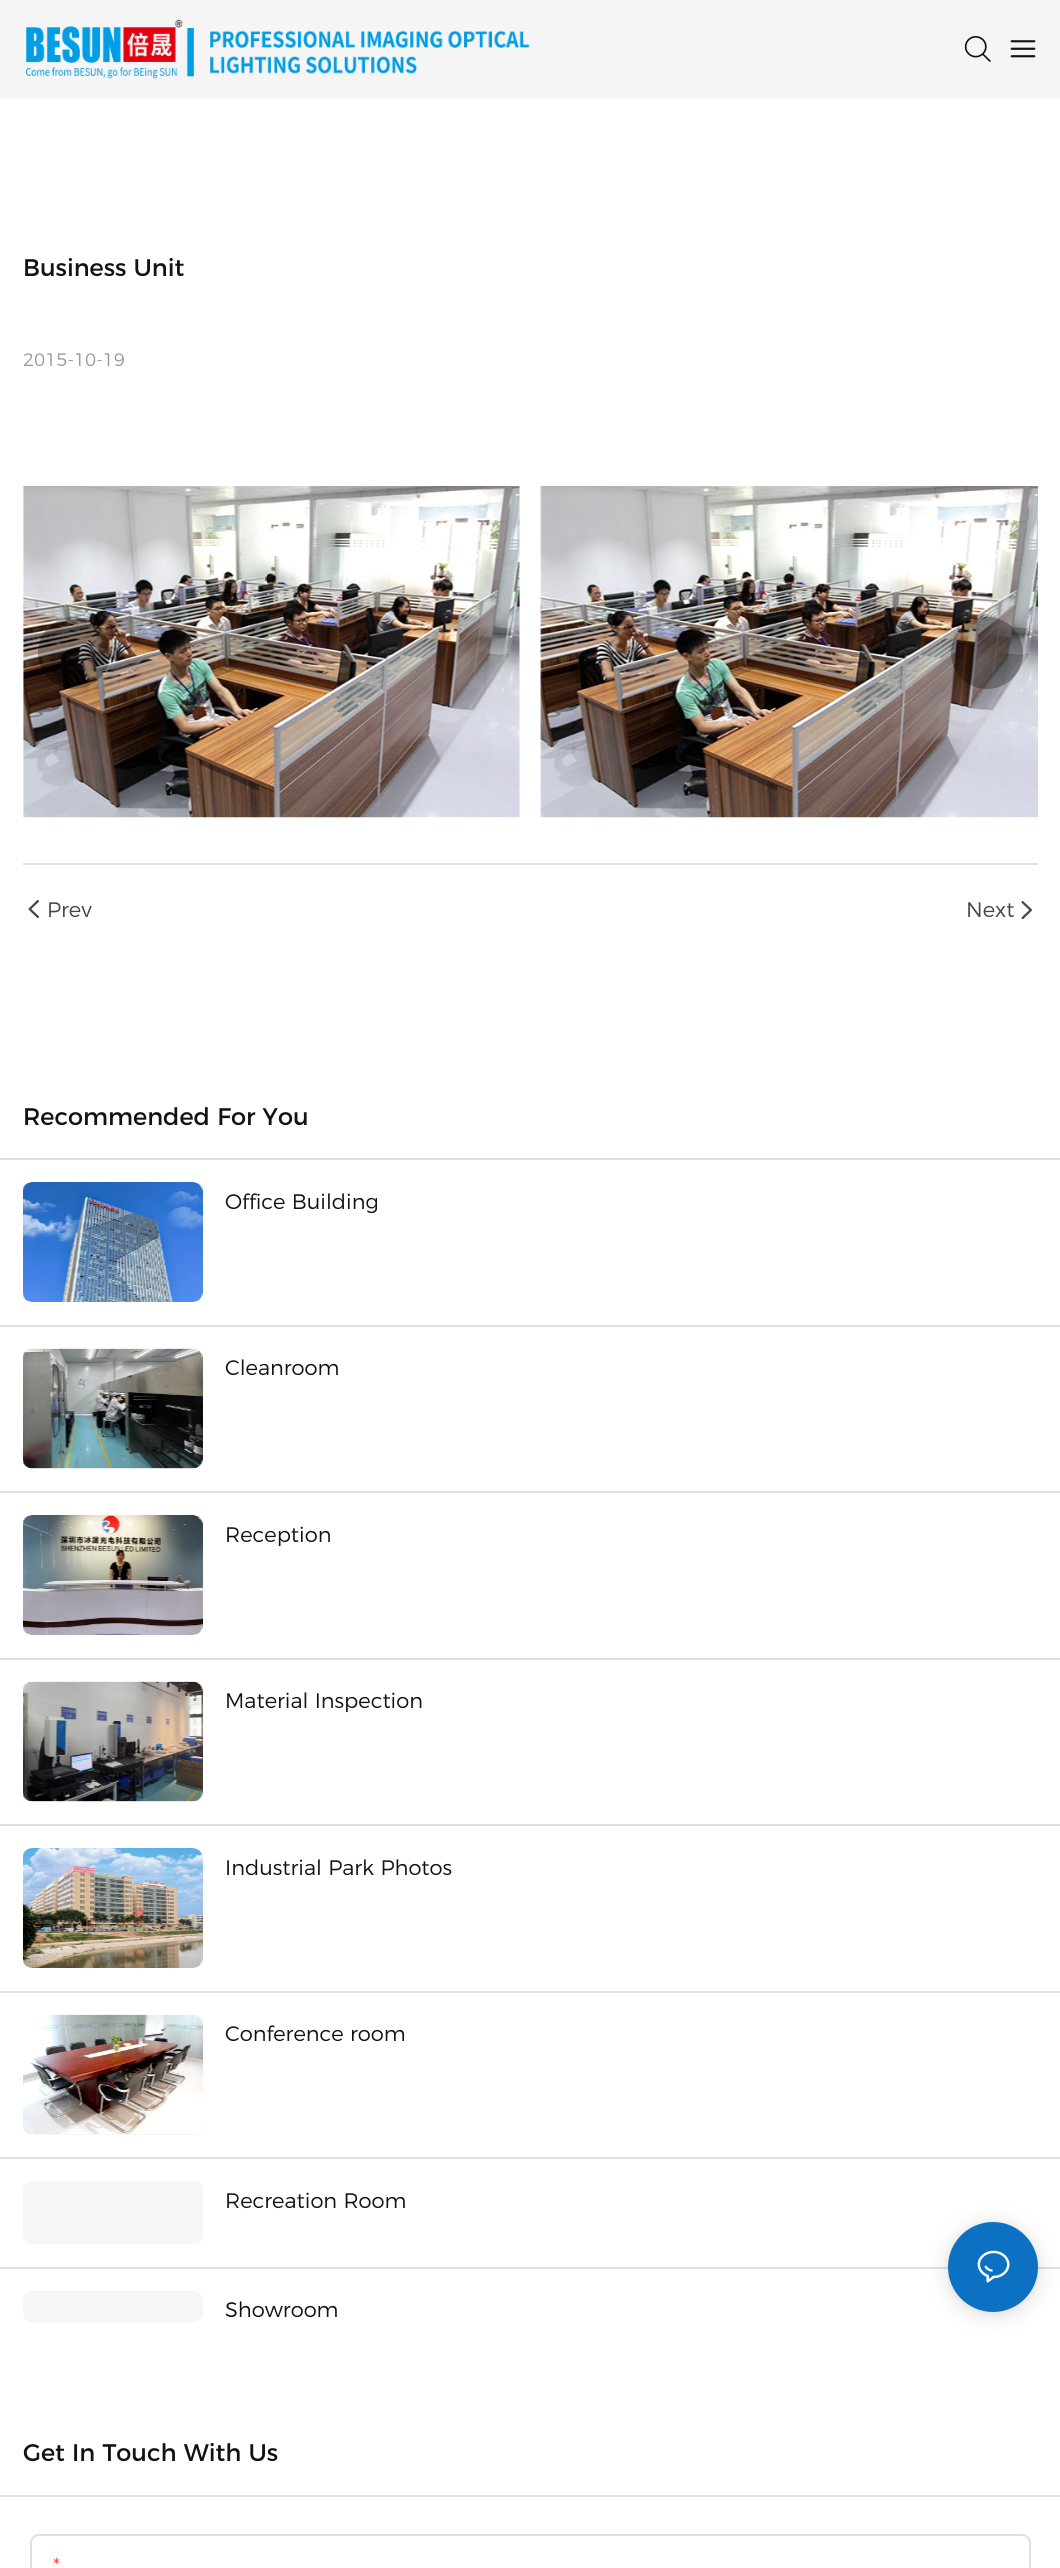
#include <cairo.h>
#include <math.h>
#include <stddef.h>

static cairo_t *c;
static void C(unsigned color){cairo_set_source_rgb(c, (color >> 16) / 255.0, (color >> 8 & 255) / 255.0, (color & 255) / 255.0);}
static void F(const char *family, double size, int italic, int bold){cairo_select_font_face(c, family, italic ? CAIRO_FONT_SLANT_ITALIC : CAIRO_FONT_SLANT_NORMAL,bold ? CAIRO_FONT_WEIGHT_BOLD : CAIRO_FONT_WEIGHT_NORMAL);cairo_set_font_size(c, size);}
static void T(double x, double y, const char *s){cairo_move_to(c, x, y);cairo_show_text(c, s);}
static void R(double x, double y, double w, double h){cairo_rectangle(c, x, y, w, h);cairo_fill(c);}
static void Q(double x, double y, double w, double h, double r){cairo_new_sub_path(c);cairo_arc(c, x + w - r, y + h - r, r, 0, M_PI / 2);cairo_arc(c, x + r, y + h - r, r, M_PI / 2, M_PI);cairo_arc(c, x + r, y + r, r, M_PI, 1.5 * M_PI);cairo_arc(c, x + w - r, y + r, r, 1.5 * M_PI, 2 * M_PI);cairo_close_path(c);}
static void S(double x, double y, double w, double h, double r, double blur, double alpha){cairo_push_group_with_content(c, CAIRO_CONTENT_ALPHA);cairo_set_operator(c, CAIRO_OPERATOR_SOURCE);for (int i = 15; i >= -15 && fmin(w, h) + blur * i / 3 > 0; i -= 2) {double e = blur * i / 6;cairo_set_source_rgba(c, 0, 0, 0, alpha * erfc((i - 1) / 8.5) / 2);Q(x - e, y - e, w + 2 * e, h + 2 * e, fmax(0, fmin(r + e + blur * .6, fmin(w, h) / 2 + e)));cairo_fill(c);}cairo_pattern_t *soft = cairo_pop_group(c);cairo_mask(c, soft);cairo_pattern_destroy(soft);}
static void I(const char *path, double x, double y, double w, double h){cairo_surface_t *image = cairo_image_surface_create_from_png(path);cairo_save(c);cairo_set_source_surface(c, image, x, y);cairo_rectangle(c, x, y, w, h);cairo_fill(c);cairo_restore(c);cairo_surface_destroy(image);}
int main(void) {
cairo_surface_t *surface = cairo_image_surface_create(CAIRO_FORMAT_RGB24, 1060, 2568);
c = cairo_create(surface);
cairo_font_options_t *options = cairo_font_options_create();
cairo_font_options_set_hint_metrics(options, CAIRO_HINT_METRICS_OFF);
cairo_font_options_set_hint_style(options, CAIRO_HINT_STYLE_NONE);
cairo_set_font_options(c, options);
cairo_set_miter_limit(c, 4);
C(0xffffff);
cairo_paint(c);
C(0xf5f5f5);
R(0,0,1060,98);
I("1.png",26,19,504,60);
I("2.png",964,36,27,26);
I("3.png",1010,40,26,18);
F("Montserrat",24,0,0);
C(0x121212);
T(23,276,"Business Unit");
F("Montserrat Light",18,0,0);
C(0x999999);
T(23,366,"2015-10-19");
I("4.png",23,486,497,332);
I("5.png",540,486,498,332);
cairo_set_source_rgba(c,0,0,0,0.3);
cairo_arc(c,74,653,36,0,2 * M_PI);
cairo_fill(c);
cairo_arc(c,987,653,36,0,2 * M_PI);
cairo_fill(c);
C(0xdfdfe1);
R(23,863,1015,2);
I("6.png",28,900,11,18);
F("Montserrat Light",21,0,0);
C(0x454545);
T(47,917,"Prev");
T(966,917,"Next");
I("7.png",1021,901,11,19);
F("Montserrat",24,0,0);
C(0x121212);
T(23,1125,"Recommended For You");
C(0xdfdfe1);
R(0,1158,1060,2);
C(0xf6f6f6);
Q(23,1182,180,120,9);
cairo_fill(c);
I("8.png",23,1182,180,120);
F("Montserrat Light",21,0,0);
C(0x121212);
T(225,1209,"Office Building");
C(0xdfdfe1);
R(0,1325,1060,2);
C(0xf6f6f6);
Q(23,1349,180,120,9);
cairo_fill(c);
I("9.png",23,1348,180,121);
C(0x121212);
T(225,1375,"Cleanroom");
C(0xdfdfe1);
R(0,1491,1060,2);
C(0xf6f6f6);
Q(23,1515,180,120,9);
cairo_fill(c);
I("10.png",23,1515,180,120);
C(0x121212);
T(225,1542,"Reception");
C(0xdfdfe1);
R(0,1658,1060,2);
C(0xf6f6f6);
Q(23,1682,180,120,9);
cairo_fill(c);
I("11.png",23,1681,180,121);
C(0x121212);
T(225,1708,"Material Inspection");
C(0xdfdfe1);
R(0,1824,1060,2);
C(0xf6f6f6);
Q(23,1848,180,120,9);
cairo_fill(c);
I("12.png",23,1848,180,120);
C(0x121212);
T(225,1875,"Industrial Park Photos");
C(0xdfdfe1);
R(0,1991,1060,2);
C(0xf6f6f6);
Q(23,2015,180,120,9);
cairo_fill(c);
I("13.png",23,2014,180,120);
C(0x121212);
T(225,2041,"Conference room");
C(0xdfdfe1);
R(0,2157,1060,2);
C(0xf6f6f6);
Q(23,2181,180,63,9);
cairo_fill(c);
C(0x121212);
T(225,2208,"Recreation Room");
C(0xdfdfe1);
R(0,2267,1060,2);
C(0xf6f6f6);
Q(23,2291,180,31,9);
cairo_fill(c);
C(0x121212);
T(225,2317,"Showroom");
C(0xdfdfe1);
R(0,2495,1060,2);
F("Montserrat",24,0,0);
C(0x121212);
T(23,2461,"Get In Touch With Us");
Q(31,2535,999,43,8);
C(0xdfdfe1);
cairo_stroke(c);
F("Montserrat Light",21,0,0);
C(0xff4d4d);
T(53,2573,"*");
C(0x000000);
S(948,2225,90,90,45,12,.12);
S(948,2223,90,90,45,3,.06);
C(0x0c71c2);
cairo_arc(c,993,2267,45,0,2 * M_PI);
cairo_fill(c);
I("14.png",977,2250,33,33);
cairo_surface_write_to_png(surface, "o.png");
cairo_font_options_destroy(options);
cairo_destroy(c);
cairo_surface_destroy(surface);
return 0;
}
